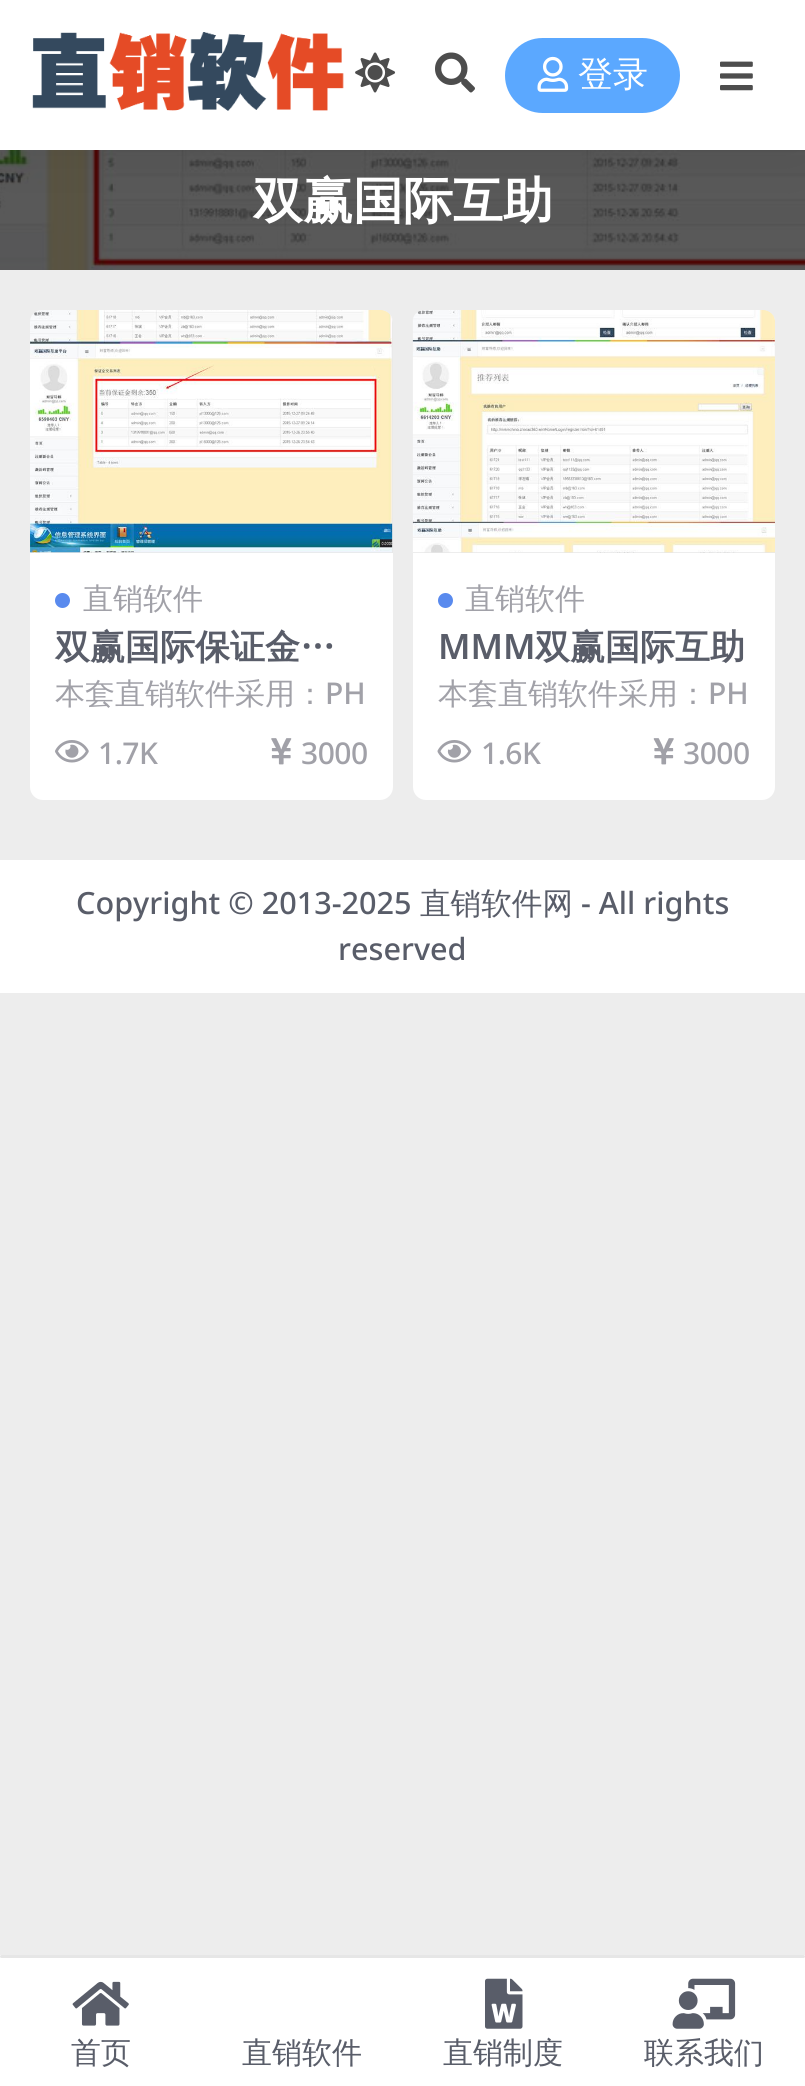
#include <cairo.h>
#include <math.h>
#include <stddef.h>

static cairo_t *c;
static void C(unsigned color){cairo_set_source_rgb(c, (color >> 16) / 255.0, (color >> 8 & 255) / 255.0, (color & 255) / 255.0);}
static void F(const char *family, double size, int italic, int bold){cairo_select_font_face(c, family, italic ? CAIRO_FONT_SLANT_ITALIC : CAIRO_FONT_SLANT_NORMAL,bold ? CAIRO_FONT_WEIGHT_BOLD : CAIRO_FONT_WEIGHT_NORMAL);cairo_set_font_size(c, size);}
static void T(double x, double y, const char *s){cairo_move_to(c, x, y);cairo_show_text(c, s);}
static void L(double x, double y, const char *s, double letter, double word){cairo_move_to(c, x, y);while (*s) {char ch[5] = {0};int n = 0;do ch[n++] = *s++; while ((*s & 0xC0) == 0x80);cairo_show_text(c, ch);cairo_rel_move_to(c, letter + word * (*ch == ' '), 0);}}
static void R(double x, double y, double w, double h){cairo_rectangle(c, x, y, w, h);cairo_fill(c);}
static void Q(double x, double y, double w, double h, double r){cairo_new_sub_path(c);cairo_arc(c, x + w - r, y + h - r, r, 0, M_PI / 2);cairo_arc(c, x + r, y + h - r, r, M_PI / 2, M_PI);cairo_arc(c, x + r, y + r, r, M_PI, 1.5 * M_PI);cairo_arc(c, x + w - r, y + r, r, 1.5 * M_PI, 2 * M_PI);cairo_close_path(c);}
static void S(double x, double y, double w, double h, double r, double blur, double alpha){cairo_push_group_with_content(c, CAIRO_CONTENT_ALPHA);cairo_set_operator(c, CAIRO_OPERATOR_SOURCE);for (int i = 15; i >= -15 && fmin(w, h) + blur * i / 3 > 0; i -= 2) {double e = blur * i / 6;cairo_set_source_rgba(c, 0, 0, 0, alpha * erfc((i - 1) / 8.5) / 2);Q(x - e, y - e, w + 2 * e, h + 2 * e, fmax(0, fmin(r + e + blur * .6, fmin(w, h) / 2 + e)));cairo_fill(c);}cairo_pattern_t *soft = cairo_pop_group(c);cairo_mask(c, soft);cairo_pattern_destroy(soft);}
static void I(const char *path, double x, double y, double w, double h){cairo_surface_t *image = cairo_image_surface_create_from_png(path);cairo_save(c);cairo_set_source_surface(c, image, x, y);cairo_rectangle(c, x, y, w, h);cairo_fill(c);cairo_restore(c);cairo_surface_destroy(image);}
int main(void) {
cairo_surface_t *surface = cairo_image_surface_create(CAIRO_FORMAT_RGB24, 805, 2086);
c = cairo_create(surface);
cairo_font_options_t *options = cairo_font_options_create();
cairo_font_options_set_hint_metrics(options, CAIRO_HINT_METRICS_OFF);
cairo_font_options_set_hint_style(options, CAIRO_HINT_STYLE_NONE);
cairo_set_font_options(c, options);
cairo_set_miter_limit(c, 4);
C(0xededed);
cairo_paint(c);
I("6.png",0,150,805,120);
C(0x000000);
S(0,0,805,150,0,37.5,.07);
C(0xffffff);
R(0,0,805,150);
I("1.png",32,32,312,79);
I("2.png",355,52,41,41);
I("3.png",435,52,40,41);
C(0x5ba8ff);
Q(505,38,175,75,37.5);
cairo_fill(c);
I("4.png",537,56,32,36);
F("WenQuanYi Zen Hei Medium",35,0,0);
C(0xffffff);
T(578,86,"登录");
I("5.png",720,61,33,30);
F("WenQuanYi Zen Hei",50,0,1);
T(253,218,"双赢国际互助");
Q(30,310,363,490,13);
cairo_fill(c);
C(0xe7e7e7);
cairo_new_path(c);
cairo_move_to(c,43,310);
cairo_line_to(c,380,310);
cairo_curve_to(c,387,310,393,316,393,323);
cairo_line_to(c,393,553);
cairo_line_to(c,30,553);
cairo_line_to(c,30,323);
cairo_curve_to(c,30,316,36,310,43,310);
cairo_close_path(c);
cairo_fill(c);
I("7.png",30,310,363,243);
C(0x598aee);
cairo_arc(c,62.5,600.5,7.5,0,2 * M_PI);
cairo_fill(c);
F("WenQuanYi Zen Hei Medium",30,0,0);
C(0xa1a1a8);
T(83,609,"直销软件");
F("WenQuanYi Zen Hei",35,0,1);
C(0x595d69);
T(55,659,"双赢国际保证金…");
F("WenQuanYi Zen Hei Medium",30,0,0);
C(0xa1a1a8);
T(55,704,"本套直销软件采用：");
F("Noto Sans Medium",30,0,0);
T(325,704,"PH");
I("8.png",55,740,34,23);
L(98,764,"1.7K",-.5,0);
I("9.png",271,738,21,27);
L(301,764,"3000",-.5,0);
C(0xffffff);
Q(413,310,362,490,13);
cairo_fill(c);
C(0xe7e7e7);
cairo_new_path(c);
cairo_move_to(c,426,310);
cairo_line_to(c,762,310);
cairo_curve_to(c,769,310,775,316,775,323);
cairo_line_to(c,775,553);
cairo_line_to(c,413,553);
cairo_line_to(c,413,323);
cairo_curve_to(c,413,316,419,310,426,310);
cairo_close_path(c);
cairo_fill(c);
I("10.png",412,310,363,243);
C(0x598aee);
cairo_arc(c,445.5,600.5,7.5,0,2 * M_PI);
cairo_fill(c);
F("WenQuanYi Zen Hei Medium",30,0,0);
C(0xa1a1a8);
T(465,609,"直销软件");
F("Noto Sans SemiBold",35,0,0);
C(0x595d69);
T(438,659,"MMM");
F("WenQuanYi Zen Hei",35,0,1);
T(535,659,"双赢国际互助");
F("WenQuanYi Zen Hei Medium",30,0,0);
C(0xa1a1a8);
T(438,704,"本套直销软件采用：");
F("Noto Sans Medium",30,0,0);
T(708,704,"PH");
I("11.png",437,740,35,23);
L(481,764,"1.6K",-.5,0);
I("12.png",653,738,21,27);
L(683,764,"3000",-.5,0);
C(0xffffff);
R(0,860,805,133);
F("Noto Sans Medium",30.6,0,0);
C(0x595d69);
T(76,914,"Copyright © 2013-2025");
F("WenQuanYi Zen Hei Medium",30.6,0,0);
T(420,914,"直销软件网");
F("Noto Sans Medium",30.6,0,0);
T(581,914,"- All rights");
T(338,960,"reserved");
C(0xffffff);
R(0,1955,805,131);
C(0xe6e6e6);
Q(0,1955,805,3,1.5);
cairo_fill(c);
I("13.png",72,1981,57,45);
F("WenQuanYi Zen Hei Medium",30,0,0);
C(0x595d69);
T(71,2063,"首页");
T(242,2063,"直销软件");
I("14.png",485,1978,38,51);
T(443,2063,"直销制度");
I("15.png",672,1978,64,51);
T(644,2063,"联系我们");
cairo_surface_write_to_png(surface, "o.png");
cairo_font_options_destroy(options);
cairo_destroy(c);
cairo_surface_destroy(surface);
return 0;
}
